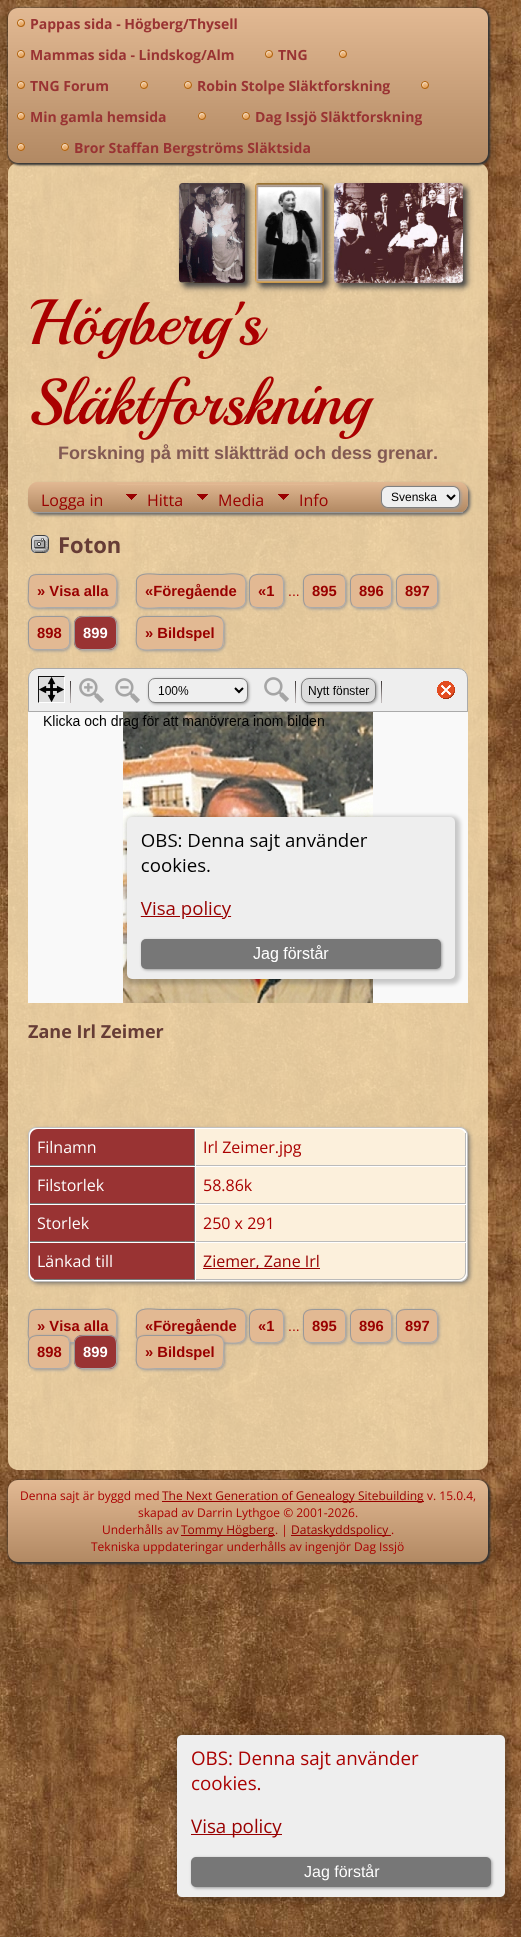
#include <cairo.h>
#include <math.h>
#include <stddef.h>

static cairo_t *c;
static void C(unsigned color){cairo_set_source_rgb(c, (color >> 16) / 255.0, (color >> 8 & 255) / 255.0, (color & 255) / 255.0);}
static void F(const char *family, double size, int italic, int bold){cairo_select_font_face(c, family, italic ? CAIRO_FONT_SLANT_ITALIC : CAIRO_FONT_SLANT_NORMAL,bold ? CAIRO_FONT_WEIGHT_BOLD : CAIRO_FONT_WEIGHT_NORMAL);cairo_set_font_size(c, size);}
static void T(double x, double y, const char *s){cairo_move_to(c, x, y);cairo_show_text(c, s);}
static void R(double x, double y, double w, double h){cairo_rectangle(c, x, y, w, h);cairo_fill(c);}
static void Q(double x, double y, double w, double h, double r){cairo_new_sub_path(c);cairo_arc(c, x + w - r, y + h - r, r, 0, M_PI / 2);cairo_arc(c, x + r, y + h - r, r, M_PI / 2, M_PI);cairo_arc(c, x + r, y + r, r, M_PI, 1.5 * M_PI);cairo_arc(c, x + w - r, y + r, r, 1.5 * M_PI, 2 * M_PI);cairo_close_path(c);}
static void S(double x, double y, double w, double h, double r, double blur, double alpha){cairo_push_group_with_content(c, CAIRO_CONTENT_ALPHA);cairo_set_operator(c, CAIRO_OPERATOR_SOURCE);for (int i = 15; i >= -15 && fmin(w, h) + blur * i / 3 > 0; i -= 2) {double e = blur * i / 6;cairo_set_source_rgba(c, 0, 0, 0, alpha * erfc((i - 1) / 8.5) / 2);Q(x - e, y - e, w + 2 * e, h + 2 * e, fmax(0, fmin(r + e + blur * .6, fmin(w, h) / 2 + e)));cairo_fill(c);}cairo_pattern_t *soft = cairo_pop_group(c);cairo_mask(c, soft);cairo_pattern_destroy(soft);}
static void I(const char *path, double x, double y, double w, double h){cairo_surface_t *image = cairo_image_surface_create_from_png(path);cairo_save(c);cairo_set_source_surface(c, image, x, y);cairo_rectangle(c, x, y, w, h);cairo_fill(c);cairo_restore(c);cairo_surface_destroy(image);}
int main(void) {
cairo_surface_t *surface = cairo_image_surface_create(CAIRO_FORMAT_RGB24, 521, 1937);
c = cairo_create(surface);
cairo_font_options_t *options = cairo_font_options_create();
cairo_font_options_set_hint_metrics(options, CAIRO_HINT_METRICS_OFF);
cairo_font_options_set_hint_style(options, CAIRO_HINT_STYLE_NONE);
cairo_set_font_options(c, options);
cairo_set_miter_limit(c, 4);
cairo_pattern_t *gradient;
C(0xffffff);
cairo_paint(c);
I("1.png",0,0,521,1937);
cairo_set_source_rgba(c,0.992,0.902,0.722,0.8);
Q(8,163,480,1307,10);
cairo_fill(c);
C(0x333333);
S(8,8,482,157,11,1,1);
gradient = cairo_pattern_create_linear(248,8,248,163);
cairo_pattern_add_color_stop_rgba(gradient,0,0.886,0.725,0.576,1);
cairo_pattern_add_color_stop_rgba(gradient,1,0.698,0.537,0.388,1);
cairo_set_source(c,gradient);
cairo_pattern_destroy(gradient);
Q(8,8,480,155,10);
cairo_fill(c);
I("2.png",17,19,8,8);
F("Open Sans",14,0,1);
C(0x993333);
T(30,29,"Pappas sida - Högberg/Thysell");
I("3.png",17,50,8,8);
T(30,60,"Mammas sida - Lindskog/Alm");
I("3.png",265,50,8,8);
T(278,60,"TNG");
I("3.png",339,50,8,8);
I("4.png",17,81,8,8);
T(30,91,"TNG Forum");
I("4.png",140,81,8,8);
I("4.png",184,81,8,8);
T(197,91,"Robin Stolpe Släktforskning");
I("4.png",421,81,8,8);
I("5.png",17,112,8,8);
T(30,122,"Min gamla hemsida");
I("5.png",198,112,8,8);
I("5.png",242,112,8,8);
T(255,122,"Dag Issjö Släktforskning");
I("6.png",17,143,8,8);
I("6.png",61,143,8,8);
T(74,153,"Bror Staffan Bergströms Släktsida");
C(0x444444);
S(338,187,129,100,4,3,1);
I("9.png",334,183,129,100);
S(259,187,69,100,4,3,1);
I("8.png",255,183,69,100);
S(183,187,66,100,4,3,1);
I("7.png",179,183,66,100);
F("Playball",64,0,0);
C(0xaa0000);
T(28,344,"Högberg's");
T(28,424,"Släktforskning");
F("Liberation Sans",18,0,1);
C(0x825953);
T(58,459,"Forskning på mitt släktträd och dess grenar.");
C(0x666666);
S(30,484,440,31,10,1.5,1);
C(0xe2b993);
Q(28,482,440,31,10);
cairo_fill(c);
cairo_save(c);
Q(28,482,440,31,10);
cairo_clip(c);
gradient = cairo_pattern_create_linear(248,482,248,512);
cairo_pattern_add_color_stop_rgba(gradient,0,0.886,0.725,0.576,1);
cairo_pattern_add_color_stop_rgba(gradient,1,0.698,0.537,0.388,1);
cairo_set_source(c,gradient);
cairo_pattern_destroy(gradient);
cairo_new_path(c);
cairo_move_to(c,38,482);
cairo_line_to(c,458,482);
cairo_curve_to(c,463.5,482,468,486.5,468,492);
cairo_line_to(c,468,512);
cairo_line_to(c,28,512);
cairo_line_to(c,28,492);
cairo_curve_to(c,28,486.5,32.5,482,38,482);
cairo_close_path(c);
cairo_fill(c);
cairo_restore(c);
C(0x999999);
R(33,512,430,1);
F("Open Sans",16,0,0);
C(0x990000);
T(41,506,"Logga in");
C(0xe2b993);
R(117,484,217,1);
I("10.png",117,485,71,27);
C(0x990000);
T(147,506,"Hitta");
I("11.png",188,485,81,27);
T(218,506,"Media");
I("12.png",269,485,65,27);
T(299,506,"Info");
C(0x999999);
S(382,487,79,22,7,1.5,1);
C(0xefefef);
Q(381.5,486.5,78,21,6.5);
cairo_fill_preserve(c);
C(0x808080);
cairo_set_line_width(c,1);
cairo_stroke(c);
cairo_new_path(c);
cairo_move_to(c,447,495);
cairo_line_to(c,451,499);
cairo_line_to(c,455,495);
C(0x000000);
cairo_set_line_width(c,2);
cairo_stroke(c);
F("Liberation Sans",12,0,0);
T(391,501,"Svenska");
I("13.png",31,535,18,18);
F("Open Sans",22,0,1);
C(0x663c36);
T(58,553,"Foton");
C(0x999999);
S(29,575,89,34,8,1.5,1);
C(0xe2b993);
Q(28,574,89,34,8);
cairo_fill(c);
cairo_new_path(c);
cairo_move_to(c,114.5,576.5);
cairo_curve_to(c,118,580.5,116.5,586.5,116.5,591);
cairo_curve_to(c,116.5,609,115.5,607.5,97,607.5);
cairo_line_to(c,48,607.5);
cairo_curve_to(c,44.5,607.5,35,609.5,30.5,605.5);
C(0xaaaaaa);
cairo_set_line_width(c,1);
cairo_stroke(c);
cairo_new_path(c);
cairo_move_to(c,30.5,605.5);
cairo_curve_to(c,27,601.5,28.5,595.5,28.5,591);
cairo_curve_to(c,28.5,573,29.5,574.5,48,574.5);
cairo_line_to(c,97,574.5);
cairo_curve_to(c,100.5,574.5,110,572.5,114.5,576.5);
C(0x999999);
cairo_stroke(c);
F("Liberation Sans",14.75,0,1);
C(0x990000);
T(37,596,"» Visa alla");
C(0x999999);
S(137,575,110,34,8,1.5,1);
C(0xe2b993);
Q(136,574,110,34,8);
cairo_fill(c);
cairo_new_path(c);
cairo_move_to(c,243.5,576.5);
cairo_curve_to(c,247,580.5,245.5,586.5,245.5,591);
cairo_line_to(c,245.5,601.5);
cairo_curve_to(c,243.5,611,227.5,607.5,222.5,607.5);
cairo_line_to(c,159.5,607.5);
cairo_curve_to(c,156.5,607.5,143.5,610,138.5,605.5);
C(0xaaaaaa);
cairo_stroke(c);
cairo_new_path(c);
cairo_move_to(c,138.5,605.5);
cairo_curve_to(c,135,601.5,136.5,595.5,136.5,591);
cairo_line_to(c,136.5,580.5);
cairo_curve_to(c,138.5,571,154.5,574.5,159.5,574.5);
cairo_line_to(c,222.5,574.5);
cairo_curve_to(c,225.5,574.5,238.5,572,243.5,576.5);
C(0x999999);
cairo_stroke(c);
C(0x990000);
T(145,596,"«Föregående");
C(0x999999);
S(250,575,35,34,8,1.5,1);
C(0xe2b993);
Q(249,574,35,34,8);
cairo_fill(c);
cairo_new_path(c);
cairo_move_to(c,281.5,576.5);
cairo_curve_to(c,283.5,579,283.5,582,283.5,585);
cairo_line_to(c,283.5,600.5);
cairo_curve_to(c,282.5,609.5,272.5,607.5,266.5,607.5);
cairo_line_to(c,260,607.5);
cairo_curve_to(c,257,607.5,254,607.5,251.5,605.5);
C(0xaaaaaa);
cairo_stroke(c);
cairo_new_path(c);
cairo_move_to(c,251.5,605.5);
cairo_curve_to(c,249.5,603,249.5,600,249.5,597);
cairo_line_to(c,249.5,581.5);
cairo_curve_to(c,250.5,572.5,260.5,574.5,266.5,574.5);
cairo_line_to(c,273,574.5);
cairo_curve_to(c,276,574.5,279,574.5,281.5,576.5);
C(0x999999);
cairo_stroke(c);
C(0x990000);
T(258,596,"«1");
F("Liberation Sans",14,0,0);
C(0xaa0000);
T(288,596,"...");
C(0x999999);
S(304,575,43,34,8,1.5,1);
C(0xe2b993);
Q(303,574,43,34,8);
cairo_fill(c);
cairo_new_path(c);
cairo_move_to(c,343.5,576.5);
cairo_curve_to(c,345.5,579,345.5,582,345.5,585);
cairo_line_to(c,345.5,601.5);
cairo_curve_to(c,344,607.5,338.5,607.5,333.5,607.5);
cairo_line_to(c,315.5,607.5);
cairo_curve_to(c,312,607.5,308.5,608,305.5,605.5);
C(0xaaaaaa);
cairo_stroke(c);
cairo_new_path(c);
cairo_move_to(c,305.5,605.5);
cairo_curve_to(c,303.5,603,303.5,600,303.5,597);
cairo_line_to(c,303.5,580.5);
cairo_curve_to(c,305,574.5,310.5,574.5,315.5,574.5);
cairo_line_to(c,333.5,574.5);
cairo_curve_to(c,337,574.5,340.5,574,343.5,576.5);
C(0x999999);
cairo_stroke(c);
F("Liberation Sans",14.75,0,1);
C(0x990000);
T(312,596,"895");
C(0x999999);
S(351,575,42,34,8,1.5,1);
C(0xe2b993);
Q(350,574,42,34,8);
cairo_fill(c);
cairo_new_path(c);
cairo_move_to(c,389.5,576.5);
cairo_curve_to(c,391.5,579,391.5,582,391.5,585);
cairo_line_to(c,391.5,601.5);
cairo_curve_to(c,390,607.5,384.5,607.5,379.5,607.5);
cairo_line_to(c,362.5,607.5);
cairo_curve_to(c,359,607.5,355.5,608,352.5,605.5);
C(0xaaaaaa);
cairo_stroke(c);
cairo_new_path(c);
cairo_move_to(c,352.5,605.5);
cairo_curve_to(c,350.5,603,350.5,600,350.5,597);
cairo_line_to(c,350.5,580.5);
cairo_curve_to(c,352,574.5,357.5,574.5,362.5,574.5);
cairo_line_to(c,379.5,574.5);
cairo_curve_to(c,383,574.5,386.5,574,389.5,576.5);
C(0x999999);
cairo_stroke(c);
C(0x990000);
T(359,596,"896");
C(0x999999);
S(397,575,42,34,8,1.5,1);
C(0xe2b993);
Q(396,574,42,34,8);
cairo_fill(c);
cairo_new_path(c);
cairo_move_to(c,435.5,576.5);
cairo_curve_to(c,437.5,579,437.5,582,437.5,585);
cairo_line_to(c,437.5,601.5);
cairo_curve_to(c,436,607.5,430.5,607.5,425.5,607.5);
cairo_line_to(c,408.5,607.5);
cairo_curve_to(c,405,607.5,401.5,608,398.5,605.5);
C(0xaaaaaa);
cairo_stroke(c);
cairo_new_path(c);
cairo_move_to(c,398.5,605.5);
cairo_curve_to(c,396.5,603,396.5,600,396.5,597);
cairo_line_to(c,396.5,580.5);
cairo_curve_to(c,398,574.5,403.5,574.5,408.5,574.5);
cairo_line_to(c,425.5,574.5);
cairo_curve_to(c,429,574.5,432.5,574,435.5,576.5);
C(0x999999);
cairo_stroke(c);
C(0x990000);
T(405,596,"897");
C(0x999999);
S(29,617,42,34,8,1.5,1);
C(0xe2b993);
Q(28,616,42,34,8);
cairo_fill(c);
cairo_new_path(c);
cairo_move_to(c,67.5,618.5);
cairo_curve_to(c,69.5,621,69.5,624,69.5,627);
cairo_line_to(c,69.5,643.5);
cairo_curve_to(c,68,649.5,62.5,649.5,57.5,649.5);
cairo_line_to(c,40.5,649.5);
cairo_curve_to(c,37,649.5,33.5,650,30.5,647.5);
C(0xaaaaaa);
cairo_stroke(c);
cairo_new_path(c);
cairo_move_to(c,30.5,647.5);
cairo_curve_to(c,28.5,645,28.5,642,28.5,639);
cairo_line_to(c,28.5,622.5);
cairo_curve_to(c,30,616.5,35.5,616.5,40.5,616.5);
cairo_line_to(c,57.5,616.5);
cairo_curve_to(c,61,616.5,64.5,616,67.5,618.5);
C(0x999999);
cairo_stroke(c);
C(0x990000);
T(37,638,"898");
C(0x999999);
S(75,617,43,34,8,1.5,1);
C(0x993333);
Q(74,616,43,34,8);
cairo_fill(c);
cairo_new_path(c);
cairo_move_to(c,114.5,618.5);
cairo_curve_to(c,116.5,621,116.5,624,116.5,627);
cairo_line_to(c,116.5,643.5);
cairo_curve_to(c,115,649.5,109.5,649.5,104.5,649.5);
cairo_line_to(c,86.5,649.5);
cairo_curve_to(c,83,649.5,79.5,650,76.5,647.5);
C(0xaaaaaa);
cairo_stroke(c);
cairo_new_path(c);
cairo_move_to(c,76.5,647.5);
cairo_curve_to(c,74.5,645,74.5,642,74.5,639);
cairo_line_to(c,74.5,622.5);
cairo_curve_to(c,76,616.5,81.5,616.5,86.5,616.5);
cairo_line_to(c,104.5,616.5);
cairo_curve_to(c,108,616.5,111.5,616,114.5,618.5);
C(0x999999);
cairo_stroke(c);
C(0xffffff);
T(83,638,"899");
C(0x999999);
S(137,617,88,34,8,1.5,1);
C(0xe2b993);
Q(136,616,88,34,8);
cairo_fill(c);
cairo_new_path(c);
cairo_move_to(c,221.5,618.5);
cairo_curve_to(c,225,622.5,223.5,628.5,223.5,633);
cairo_curve_to(c,223.5,651,222.5,649.5,204,649.5);
cairo_line_to(c,156,649.5);
cairo_curve_to(c,152,649.5,143,651.5,138.5,647.5);
C(0xaaaaaa);
cairo_stroke(c);
cairo_new_path(c);
cairo_move_to(c,138.5,647.5);
cairo_curve_to(c,135,643.5,136.5,637.5,136.5,633);
cairo_curve_to(c,136.5,615,137.5,616.5,156,616.5);
cairo_line_to(c,204,616.5);
cairo_curve_to(c,208,616.5,217,614.5,221.5,618.5);
C(0x999999);
cairo_stroke(c);
C(0x990000);
T(145,638,"» Bildspel");
I("14.png",28,668,440,335);
F("Open Sans",18,0,1);
C(0x663c36);
T(28,1038,"Zane Irl Zeimer");
C(0x666666);
S(31,1130,438,153,7,2.5,1);
C(0xffffff);
Q(28.5,1127.5,439,154,7.5);
cairo_fill_preserve(c);
C(0xc0c0c0);
cairo_stroke(c);
C(0x993333);
cairo_new_path(c);
cairo_move_to(c,38,1129);
cairo_line_to(c,195,1129);
cairo_line_to(c,195,1166);
cairo_line_to(c,30,1166);
cairo_line_to(c,30,1137);
cairo_curve_to(c,30,1132.5,33.5,1129,38,1129);
cairo_close_path(c);
cairo_fill(c);
C(0x777777);
R(194,1129,1,37);
R(30,1165,165,1);
F("Open Sans",16,0,0);
C(0xffffff);
T(37,1153,"Filnamn");
C(0xfcf0dc);
cairo_new_path(c);
cairo_move_to(c,196,1129);
cairo_line_to(c,458,1129);
cairo_curve_to(c,462.5,1129,466,1132.5,466,1137);
cairo_line_to(c,466,1166);
cairo_line_to(c,196,1166);
cairo_close_path(c);
cairo_fill(c);
C(0xbbbbbb);
R(465,1133,1,33);
R(196,1165,270,1);
C(0xaa0000);
T(203,1153,"Irl Zeimer.jpg");
C(0x993333);
R(30,1167,164,36);
C(0x777777);
R(194,1167,1,37);
R(30,1203,165,1);
C(0xffffff);
T(37,1191,"Filstorlek");
C(0xfcf0dc);
R(196,1167,269,36);
C(0xbbbbbb);
R(465,1167,1,37);
R(196,1203,270,1);
C(0xaa0000);
T(203,1191,"58.86k");
C(0x993333);
R(30,1205,164,36);
C(0x777777);
R(194,1205,1,37);
R(30,1241,165,1);
C(0xffffff);
T(37,1229,"Storlek");
C(0xfcf0dc);
R(196,1205,269,36);
C(0xbbbbbb);
R(465,1205,1,37);
R(196,1241,270,1);
C(0xaa0000);
T(203,1229,"250 x 291");
C(0x993333);
cairo_new_path(c);
cairo_move_to(c,30,1243);
cairo_line_to(c,195,1243);
cairo_line_to(c,195,1280);
cairo_line_to(c,38,1280);
cairo_curve_to(c,33.5,1280,30,1276.5,30,1272);
cairo_close_path(c);
cairo_fill(c);
C(0x777777);
R(194,1243,1,37);
R(34,1279,161,1);
C(0xffffff);
T(37,1267,"Länkad till");
C(0xfcf0dc);
cairo_new_path(c);
cairo_move_to(c,196,1243);
cairo_line_to(c,466,1243);
cairo_line_to(c,466,1272);
cairo_curve_to(c,466,1276.5,462.5,1280,458,1280);
cairo_line_to(c,196,1280);
cairo_close_path(c);
cairo_fill(c);
C(0xbbbbbb);
cairo_set_fill_rule(c,CAIRO_FILL_RULE_EVEN_ODD);
cairo_new_path(c);
cairo_move_to(c,196,1243);
cairo_line_to(c,466,1243);
cairo_line_to(c,466,1272);
cairo_curve_to(c,466,1276,462,1280,458,1280);
cairo_line_to(c,196,1280);
cairo_close_path(c);
cairo_move_to(c,196,1243);
cairo_line_to(c,465,1243);
cairo_line_to(c,465,1272);
cairo_curve_to(c,465,1276,462,1279,458,1279);
cairo_line_to(c,196,1279);
cairo_close_path(c);
cairo_fill(c);
C(0x990000);
R(203,1268,117,1);
T(203,1267,"Ziemer, Zane Irl");
C(0x999999);
S(29,1310,89,34,8,1.5,1);
C(0xe2b993);
Q(28,1309,89,34,8);
cairo_fill(c);
cairo_new_path(c);
cairo_move_to(c,114.5,1311.5);
cairo_curve_to(c,118,1315.5,116.5,1321.5,116.5,1326);
cairo_curve_to(c,116.5,1344,115.5,1342.5,97,1342.5);
cairo_line_to(c,48,1342.5);
cairo_curve_to(c,44.5,1342.5,35,1344.5,30.5,1340.5);
C(0xaaaaaa);
cairo_stroke(c);
cairo_new_path(c);
cairo_move_to(c,30.5,1340.5);
cairo_curve_to(c,27,1336.5,28.5,1330.5,28.5,1326);
cairo_curve_to(c,28.5,1308,29.5,1309.5,48,1309.5);
cairo_line_to(c,97,1309.5);
cairo_curve_to(c,100.5,1309.5,110,1307.5,114.5,1311.5);
C(0x999999);
cairo_stroke(c);
F("Liberation Sans",14.75,0,1);
C(0x990000);
T(37,1331,"» Visa alla");
C(0x999999);
S(137,1310,110,34,8,1.5,1);
C(0xe2b993);
Q(136,1309,110,34,8);
cairo_fill(c);
cairo_new_path(c);
cairo_move_to(c,243.5,1311.5);
cairo_curve_to(c,247,1315.5,245.5,1321.5,245.5,1326);
cairo_line_to(c,245.5,1336.5);
cairo_curve_to(c,243.5,1346,227.5,1342.5,222.5,1342.5);
cairo_line_to(c,159.5,1342.5);
cairo_curve_to(c,156.5,1342.5,143.5,1345,138.5,1340.5);
C(0xaaaaaa);
cairo_stroke(c);
cairo_new_path(c);
cairo_move_to(c,138.5,1340.5);
cairo_curve_to(c,135,1336.5,136.5,1330.5,136.5,1326);
cairo_line_to(c,136.5,1315.5);
cairo_curve_to(c,138.5,1306,154.5,1309.5,159.5,1309.5);
cairo_line_to(c,222.5,1309.5);
cairo_curve_to(c,225.5,1309.5,238.5,1307,243.5,1311.5);
C(0x999999);
cairo_stroke(c);
C(0x990000);
T(145,1331,"«Föregående");
C(0x999999);
S(250,1310,35,34,8,1.5,1);
C(0xe2b993);
Q(249,1309,35,34,8);
cairo_fill(c);
cairo_new_path(c);
cairo_move_to(c,281.5,1311.5);
cairo_curve_to(c,283.5,1314,283.5,1317,283.5,1320);
cairo_line_to(c,283.5,1335.5);
cairo_curve_to(c,282.5,1344.5,272.5,1342.5,266.5,1342.5);
cairo_line_to(c,260,1342.5);
cairo_curve_to(c,257,1342.5,254,1342.5,251.5,1340.5);
C(0xaaaaaa);
cairo_stroke(c);
cairo_new_path(c);
cairo_move_to(c,251.5,1340.5);
cairo_curve_to(c,249.5,1338,249.5,1335,249.5,1332);
cairo_line_to(c,249.5,1316.5);
cairo_curve_to(c,250.5,1307.5,260.5,1309.5,266.5,1309.5);
cairo_line_to(c,273,1309.5);
cairo_curve_to(c,276,1309.5,279,1309.5,281.5,1311.5);
C(0x999999);
cairo_stroke(c);
C(0x990000);
T(258,1331,"«1");
F("Liberation Sans",14,0,0);
C(0xaa0000);
T(288,1331,"...");
C(0x999999);
S(304,1310,43,34,8,1.5,1);
C(0xe2b993);
Q(303,1309,43,34,8);
cairo_fill(c);
cairo_new_path(c);
cairo_move_to(c,343.5,1311.5);
cairo_curve_to(c,345.5,1314,345.5,1317,345.5,1320);
cairo_line_to(c,345.5,1336.5);
cairo_curve_to(c,344,1342.5,338.5,1342.5,333.5,1342.5);
cairo_line_to(c,315.5,1342.5);
cairo_curve_to(c,312,1342.5,308.5,1343,305.5,1340.5);
C(0xaaaaaa);
cairo_stroke(c);
cairo_new_path(c);
cairo_move_to(c,305.5,1340.5);
cairo_curve_to(c,303.5,1338,303.5,1335,303.5,1332);
cairo_line_to(c,303.5,1315.5);
cairo_curve_to(c,305,1309.5,310.5,1309.5,315.5,1309.5);
cairo_line_to(c,333.5,1309.5);
cairo_curve_to(c,337,1309.5,340.5,1309,343.5,1311.5);
C(0x999999);
cairo_stroke(c);
F("Liberation Sans",14.75,0,1);
C(0x990000);
T(312,1331,"895");
C(0x999999);
S(351,1310,42,34,8,1.5,1);
C(0xe2b993);
Q(350,1309,42,34,8);
cairo_fill(c);
cairo_new_path(c);
cairo_move_to(c,389.5,1311.5);
cairo_curve_to(c,391.5,1314,391.5,1317,391.5,1320);
cairo_line_to(c,391.5,1336.5);
cairo_curve_to(c,390,1342.5,384.5,1342.5,379.5,1342.5);
cairo_line_to(c,362.5,1342.5);
cairo_curve_to(c,359,1342.5,355.5,1343,352.5,1340.5);
C(0xaaaaaa);
cairo_stroke(c);
cairo_new_path(c);
cairo_move_to(c,352.5,1340.5);
cairo_curve_to(c,350.5,1338,350.5,1335,350.5,1332);
cairo_line_to(c,350.5,1315.5);
cairo_curve_to(c,352,1309.5,357.5,1309.5,362.5,1309.5);
cairo_line_to(c,379.5,1309.5);
cairo_curve_to(c,383,1309.5,386.5,1309,389.5,1311.5);
C(0x999999);
cairo_stroke(c);
C(0x990000);
T(359,1331,"896");
C(0x999999);
S(397,1310,42,34,8,1.5,1);
C(0xe2b993);
Q(396,1309,42,34,8);
cairo_fill(c);
cairo_new_path(c);
cairo_move_to(c,435.5,1311.5);
cairo_curve_to(c,437.5,1314,437.5,1317,437.5,1320);
cairo_line_to(c,437.5,1336.5);
cairo_curve_to(c,436,1342.5,430.5,1342.5,425.5,1342.5);
cairo_line_to(c,408.5,1342.5);
cairo_curve_to(c,405,1342.5,401.5,1343,398.5,1340.5);
C(0xaaaaaa);
cairo_stroke(c);
cairo_new_path(c);
cairo_move_to(c,398.5,1340.5);
cairo_curve_to(c,396.5,1338,396.5,1335,396.5,1332);
cairo_line_to(c,396.5,1315.5);
cairo_curve_to(c,398,1309.5,403.5,1309.5,408.5,1309.5);
cairo_line_to(c,425.5,1309.5);
cairo_curve_to(c,429,1309.5,432.5,1309,435.5,1311.5);
C(0x999999);
cairo_stroke(c);
C(0x990000);
T(405,1331,"897");
C(0x999999);
S(29,1336,42,34,8,1.5,1);
C(0xe2b993);
Q(28,1335,42,34,8);
cairo_fill(c);
cairo_new_path(c);
cairo_move_to(c,67.5,1337.5);
cairo_curve_to(c,69.5,1340,69.5,1343,69.5,1346);
cairo_line_to(c,69.5,1362.5);
cairo_curve_to(c,68,1368.5,62.5,1368.5,57.5,1368.5);
cairo_line_to(c,40.5,1368.5);
cairo_curve_to(c,37,1368.5,33.5,1369,30.5,1366.5);
C(0xaaaaaa);
cairo_stroke(c);
cairo_new_path(c);
cairo_move_to(c,30.5,1366.5);
cairo_curve_to(c,28.5,1364,28.5,1361,28.5,1358);
cairo_line_to(c,28.5,1341.5);
cairo_curve_to(c,30,1335.5,35.5,1335.5,40.5,1335.5);
cairo_line_to(c,57.5,1335.5);
cairo_curve_to(c,61,1335.5,64.5,1335,67.5,1337.5);
C(0x999999);
cairo_stroke(c);
C(0x990000);
T(37,1357,"898");
C(0x999999);
S(75,1336,43,34,8,1.5,1);
C(0x993333);
Q(74,1335,43,34,8);
cairo_fill(c);
cairo_new_path(c);
cairo_move_to(c,114.5,1337.5);
cairo_curve_to(c,116.5,1340,116.5,1343,116.5,1346);
cairo_line_to(c,116.5,1362.5);
cairo_curve_to(c,115,1368.5,109.5,1368.5,104.5,1368.5);
cairo_line_to(c,86.5,1368.5);
cairo_curve_to(c,83,1368.5,79.5,1369,76.5,1366.5);
C(0xaaaaaa);
cairo_stroke(c);
cairo_new_path(c);
cairo_move_to(c,76.5,1366.5);
cairo_curve_to(c,74.5,1364,74.5,1361,74.5,1358);
cairo_line_to(c,74.5,1341.5);
cairo_curve_to(c,76,1335.5,81.5,1335.5,86.5,1335.5);
cairo_line_to(c,104.5,1335.5);
cairo_curve_to(c,108,1335.5,111.5,1335,114.5,1337.5);
C(0x999999);
cairo_stroke(c);
C(0xffffff);
T(83,1357,"899");
C(0x999999);
S(137,1336,88,34,8,1.5,1);
C(0xe2b993);
Q(136,1335,88,34,8);
cairo_fill(c);
cairo_new_path(c);
cairo_move_to(c,221.5,1337.5);
cairo_curve_to(c,225,1341.5,223.5,1347.5,223.5,1352);
cairo_curve_to(c,223.5,1370,222.5,1368.5,204,1368.5);
cairo_line_to(c,156,1368.5);
cairo_curve_to(c,152,1368.5,143,1370.5,138.5,1366.5);
C(0xaaaaaa);
cairo_stroke(c);
cairo_new_path(c);
cairo_move_to(c,138.5,1366.5);
cairo_curve_to(c,135,1362.5,136.5,1356.5,136.5,1352);
cairo_curve_to(c,136.5,1334,137.5,1335.5,156,1335.5);
cairo_line_to(c,204,1335.5);
cairo_curve_to(c,208,1335.5,217,1333.5,221.5,1337.5);
C(0x999999);
cairo_stroke(c);
C(0x990000);
T(145,1357,"» Bildspel");
C(0x000000);
S(176,1734,334,168,8,2,.2);
C(0xeeeeee);
Q(177,1735,328,162,5);
cairo_fill(c);
F("Open Sans",18.75,0,0);
C(0xaa0000);
T(191,1765,"OBS: Denna sajt använder");
T(191,1790,"cookies.");
C(0x990000);
R(191,1834,91,1);
T(191,1833,"Visa policy");
C(0x999999);
S(192,1858,300,30,5,1.5,1);
C(0x777777);
Q(191,1857,300,30,5);
cairo_fill(c);
F("Liberation Sans",16,0,0);
C(0xffffff);
T(304,1877,"Jag förstår");
C(0x333333);
S(8,1480,482,84,11,1,1);
gradient = cairo_pattern_create_linear(248,1480,248,1562);
cairo_pattern_add_color_stop_rgba(gradient,0,0.886,0.725,0.576,1);
cairo_pattern_add_color_stop_rgba(gradient,1,0.698,0.537,0.388,1);
cairo_set_source(c,gradient);
cairo_pattern_destroy(gradient);
Q(8,1480,480,82,10);
cairo_fill(c);
F("Open Sans",12,0,0);
C(0xaa0000);
T(20,1500,"Denna sajt är byggd med");
C(0x990000);
R(162,1501,262,1);
T(162,1500,"The Next Generation of Genealogy Sitebuilding");
C(0xaa0000);
T(427,1500,"v. 15.0.4,");
T(138,1517,"skapad av Darrin Lythgoe © 2001-2026.");
T(102,1534,"Underhålls av");
C(0x990000);
R(181,1535,94,1);
T(181,1534,"Tommy Högberg");
C(0xaa0000);
T(275,1534,". |");
C(0x990000);
R(291,1535,100,1);
T(291,1534,"Dataskyddspolicy");
C(0xaa0000);
T(391,1534,".");
T(91,1551,"Tekniska uppdateringar underhålls av ingenjör Dag Issjö");
cairo_surface_write_to_png(surface, "o.png");
cairo_font_options_destroy(options);
cairo_destroy(c);
cairo_surface_destroy(surface);
return 0;
}
